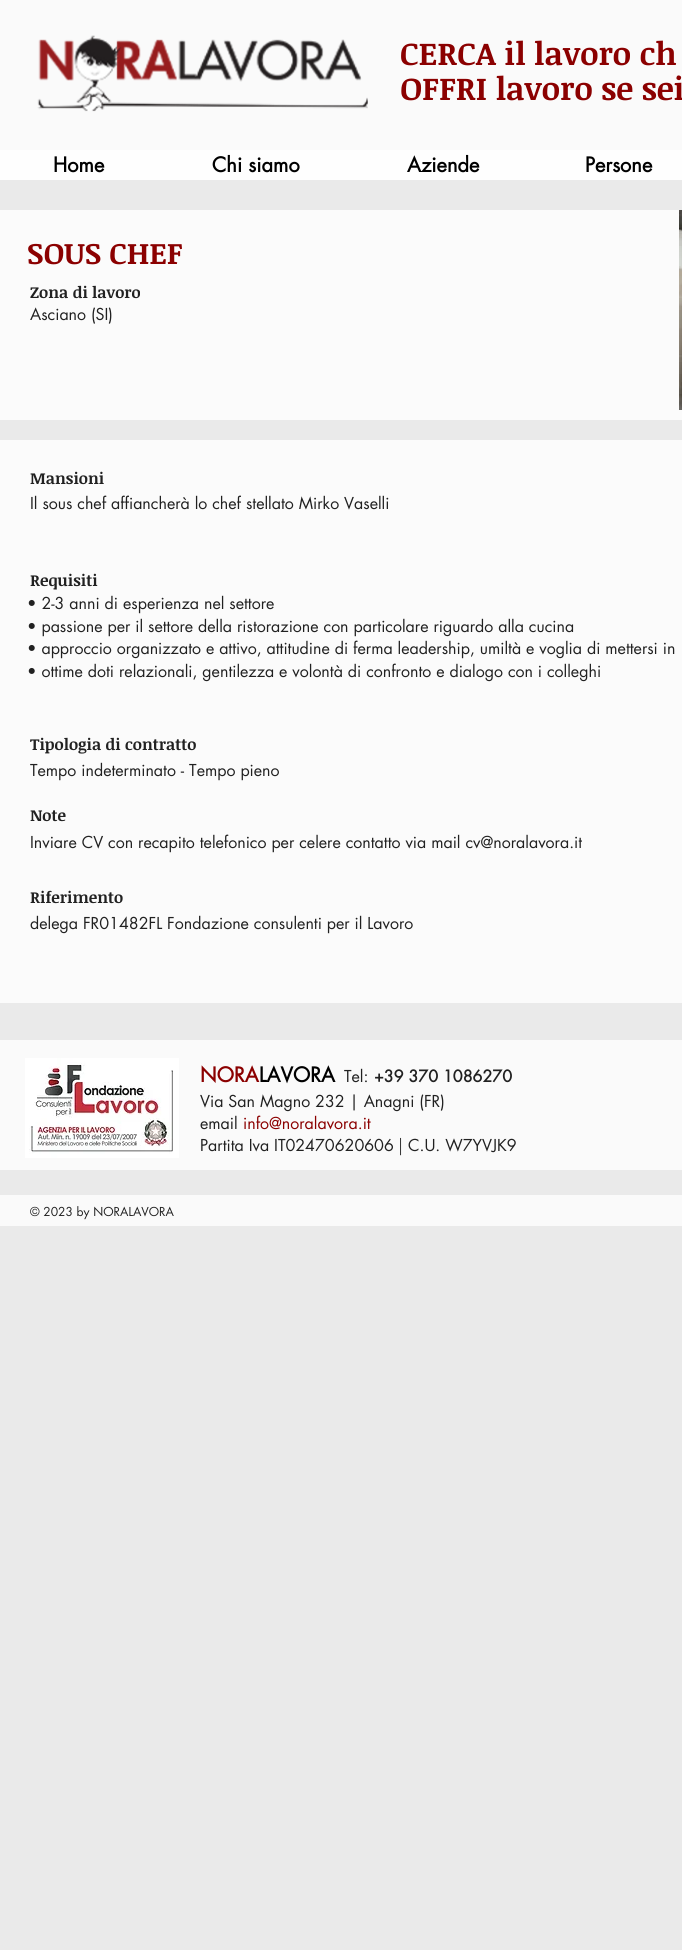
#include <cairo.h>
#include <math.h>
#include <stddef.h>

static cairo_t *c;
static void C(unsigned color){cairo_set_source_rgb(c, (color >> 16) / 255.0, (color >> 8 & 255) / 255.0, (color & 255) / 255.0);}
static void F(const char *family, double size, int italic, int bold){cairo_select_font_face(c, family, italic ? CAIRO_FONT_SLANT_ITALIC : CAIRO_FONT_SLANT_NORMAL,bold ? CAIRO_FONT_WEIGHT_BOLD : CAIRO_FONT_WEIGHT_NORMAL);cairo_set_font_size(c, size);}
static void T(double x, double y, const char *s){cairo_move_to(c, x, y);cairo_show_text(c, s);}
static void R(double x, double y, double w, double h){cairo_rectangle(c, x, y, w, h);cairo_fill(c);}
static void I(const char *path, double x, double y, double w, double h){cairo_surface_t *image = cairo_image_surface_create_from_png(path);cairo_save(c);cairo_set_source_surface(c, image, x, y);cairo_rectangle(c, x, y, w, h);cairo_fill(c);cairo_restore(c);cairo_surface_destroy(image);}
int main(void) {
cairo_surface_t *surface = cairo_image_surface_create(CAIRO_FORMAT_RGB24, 682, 1950);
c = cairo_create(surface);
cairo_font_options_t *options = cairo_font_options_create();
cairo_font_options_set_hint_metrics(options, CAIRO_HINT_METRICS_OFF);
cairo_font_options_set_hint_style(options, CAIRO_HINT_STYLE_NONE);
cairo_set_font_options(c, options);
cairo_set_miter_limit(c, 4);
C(0xeaeaea);
cairo_paint(c);
C(0xfafafa);
R(0,0,682,150);
F("Noticia Text",32,0,1);
C(0x8b0000);
T(400,65,"CERCA il lavoro ch");
T(400,100,"OFFRI lavoro se sei");
I("1.png",37,35,331,77);
C(0xfefefe);
R(0,150,682,30);
F("futura",20,0,1);
C(0x000000);
T(53,172,"Home");
T(212,172,"Chi siamo");
T(407,172,"Aziende");
T(585,172,"Persone");
C(0xfbfbfb);
R(0,210,682,210);
F("Noticia Text",30,0,1);
C(0x8b0000);
T(27,264,"SOUS CHEF");
I("2.png",679,210,3,200);
F("Noticia Text",16,0,1);
C(0x212121);
T(30,298,"Zona di lavoro");
F("futura",16,0,0);
T(30,320,"Asciano (SI)");
C(0xfbfbfb);
R(0,440,682,563);
F("Noticia Text",16,0,1);
C(0x212121);
T(30,484,"Mansioni");
F("futura",16,0,0);
T(30,509,"Il sous chef affiancherà lo chef stellato Mirko Vaselli");
F("Noticia Text",16,0,1);
T(30,586,"Requisiti");
F("futura",16,0,0);
T(27,609,"• 2-3 anni di esperienza nel settore");
T(27,632,"• passione per il settore della ristorazione con particolare riguardo alla cucina");
T(27,654,"• approccio organizzato e attivo, attitudine di ferma leadership, umiltà e voglia di mettersi in");
T(27,677,"• ottime doti relazionali, gentilezza e volontà di confronto e dialogo con i colleghi");
F("Noticia Text",16,0,1);
T(30,750,"Tipologia di contratto");
F("futura",16,0,0);
T(30,776,"Tempo indeterminato - Tempo pieno");
F("Noticia Text",16,0,1);
T(30,821,"Note");
F("futura",16,0,0);
T(30,848,"Inviare CV con recapito telefonico per celere contatto via mail cv@noralavora.it");
F("Noticia Text",16,0,1);
T(30,903,"Riferimento");
F("futura",16,0,0);
T(30,929,"delega FR01482FL Fondazione consulenti per il Lavoro");
C(0xfafafa);
R(0,1040,682,130);
I("3.png",25,1058,154,100);
F("futura",20,0,1);
C(0x8b0000);
T(200,1082,"NORA");
C(0x000000);
T(259,1082,"LAVORA");
F("futura",16,0,0);
C(0x212121);
T(344,1082,"Tel:");
F("futura",16,0,1);
T(374,1082,"+39 370 1086270");
F("futura",16,0,0);
T(200,1107,"Via San Magno 232 | Anagni (FR)");
T(200,1129,"email");
C(0x8b0000);
T(243,1129,"info@noralavora.it");
C(0x212121);
T(200,1151,"Partita Iva IT02470620606");
F("Noticia Text",16,0,0);
T(398,1151,"|");
F("futura",16,0,0);
T(408,1151,"C.U. W7YVJK9");
C(0xfafafa);
R(0,1195,682,31);
F("futura",12,0,0);
C(0x212121);
T(30,1216,"© 2023 by NORALAVORA");
cairo_surface_write_to_png(surface, "o.png");
cairo_font_options_destroy(options);
cairo_destroy(c);
cairo_surface_destroy(surface);
return 0;
}
